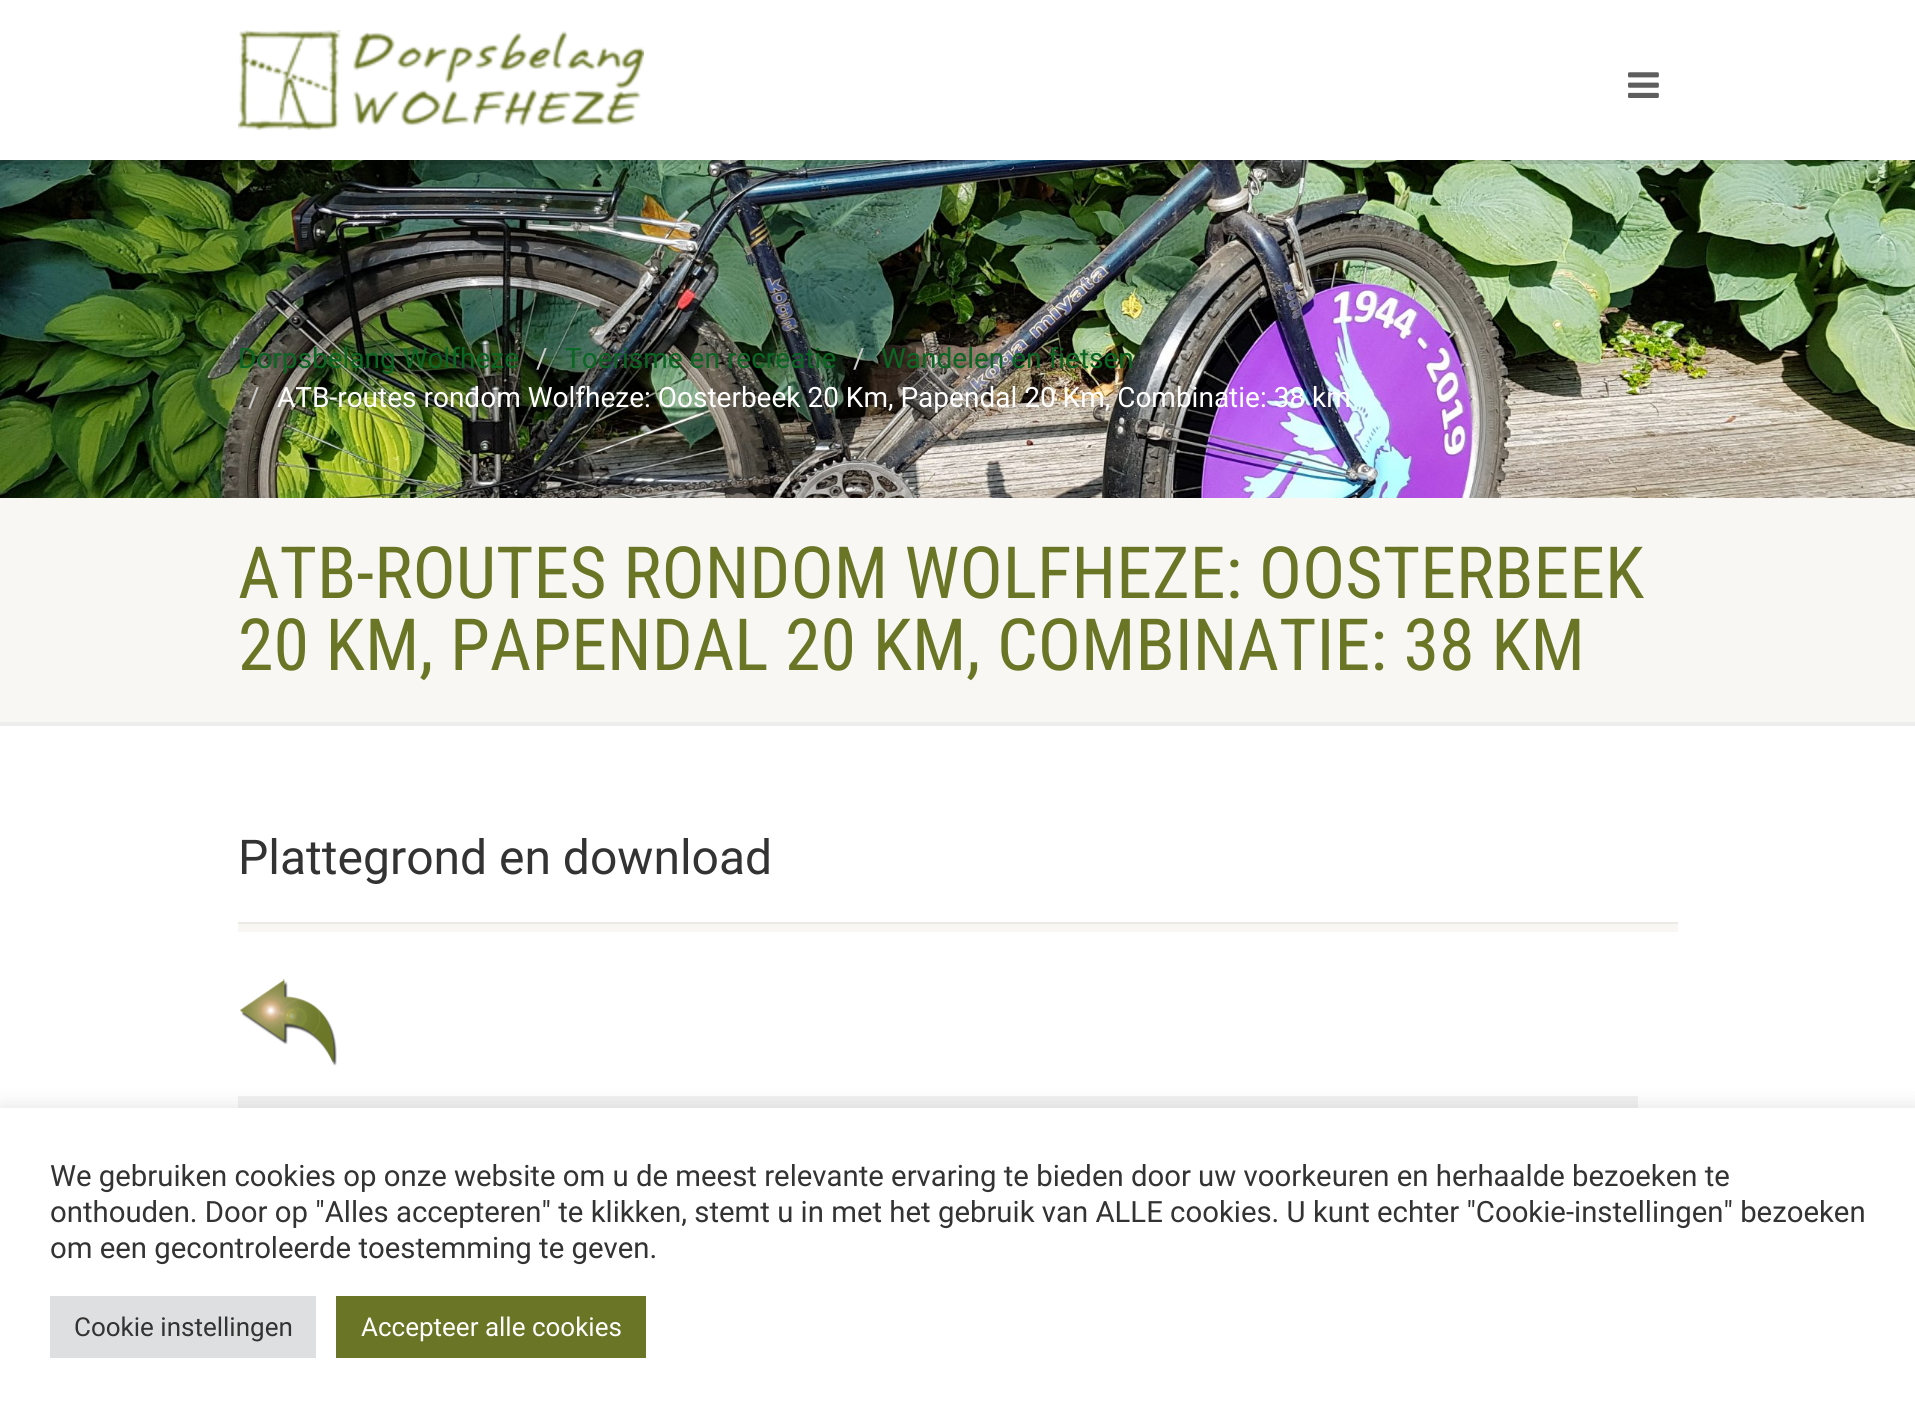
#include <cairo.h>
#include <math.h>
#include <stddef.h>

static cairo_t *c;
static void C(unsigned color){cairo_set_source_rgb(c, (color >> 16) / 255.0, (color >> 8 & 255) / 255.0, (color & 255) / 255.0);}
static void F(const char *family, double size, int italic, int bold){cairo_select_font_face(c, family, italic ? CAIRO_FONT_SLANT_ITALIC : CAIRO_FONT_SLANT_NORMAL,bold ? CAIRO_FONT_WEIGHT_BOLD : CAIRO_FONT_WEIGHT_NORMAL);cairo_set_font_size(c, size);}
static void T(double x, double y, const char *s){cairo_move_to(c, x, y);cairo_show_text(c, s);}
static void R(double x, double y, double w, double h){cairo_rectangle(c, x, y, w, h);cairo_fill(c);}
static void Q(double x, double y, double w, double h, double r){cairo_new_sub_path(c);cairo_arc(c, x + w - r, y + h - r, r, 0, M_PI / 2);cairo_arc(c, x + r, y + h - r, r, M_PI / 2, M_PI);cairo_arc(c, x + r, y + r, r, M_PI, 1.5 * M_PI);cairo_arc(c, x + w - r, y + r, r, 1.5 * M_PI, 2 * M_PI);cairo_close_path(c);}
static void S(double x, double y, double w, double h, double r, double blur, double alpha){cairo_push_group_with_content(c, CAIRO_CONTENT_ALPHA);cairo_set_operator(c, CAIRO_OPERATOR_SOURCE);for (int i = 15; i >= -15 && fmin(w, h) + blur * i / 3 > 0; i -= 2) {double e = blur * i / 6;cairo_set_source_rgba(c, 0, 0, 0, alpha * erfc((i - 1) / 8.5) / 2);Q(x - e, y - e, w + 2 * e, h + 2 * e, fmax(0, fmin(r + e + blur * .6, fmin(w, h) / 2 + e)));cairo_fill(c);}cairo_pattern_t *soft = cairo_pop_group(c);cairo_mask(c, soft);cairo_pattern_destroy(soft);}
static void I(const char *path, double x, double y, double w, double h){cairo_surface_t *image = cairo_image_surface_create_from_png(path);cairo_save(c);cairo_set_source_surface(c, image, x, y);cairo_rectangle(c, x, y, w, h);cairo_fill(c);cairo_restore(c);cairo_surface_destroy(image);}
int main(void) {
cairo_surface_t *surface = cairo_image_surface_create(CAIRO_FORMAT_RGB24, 1915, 1417);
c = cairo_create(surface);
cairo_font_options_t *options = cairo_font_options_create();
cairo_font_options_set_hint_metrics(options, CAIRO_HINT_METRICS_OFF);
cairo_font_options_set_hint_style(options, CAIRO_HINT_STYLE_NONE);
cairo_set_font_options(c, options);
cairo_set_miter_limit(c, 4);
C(0xffffff);
cairo_paint(c);
I("3.png",0,160,1915,338);
cairo_set_source_rgba(c,0,0,0,0.1);
R(0,160,1915,4);
I("1.png",238,30,406,100);
I("2.png",1628,72,31,26);
F("Roboto",28,0,0);
C(0x0b6623);
T(238,368,"Dorpsbelang Wolfheze");
C(0xcccccc);
T(536,368,"/");
C(0x0b6623);
T(565,368,"Toerisme en recreatie");
C(0xcccccc);
T(853,368,"/");
C(0x0b6623);
T(881,368,"Wandelen en fietsen");
C(0xcccccc);
T(248,407,"/");
C(0xffffff);
T(277,407,"ATB-routes rondom Wolfheze: Oosterbeek 20 Km, Papendal 20 Km, Combinatie: 38 km");
C(0xededed);
R(0,722,1915,4);
C(0xf8f7f3);
R(0,498,1915,224);
F("Roboto Condensed",72,0,0);
C(0x6a7625);
T(238,598,"ATB-ROUTES RONDOM WOLFHEZE: OOSTERBEEK");
T(238,670,"20 KM, PAPENDAL 20 KM, COMBINATIE: 38 KM");
C(0xf8f7f3);
R(238,924,1440,8);
F("Roboto",48,0,0);
C(0x333333);
T(238,874,"Plattegrond en download");
C(0xeceae4);
R(238,922,1440,2);
I("4.png",240,979,97,87);
I("5.png",238,1096,1400,12);
C(0xacabab);
S(0,1106,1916,310,0,10,.3);
C(0xffffff);
R(0,1108,1915,309);
F("Roboto",29.33,0,0);
C(0x333333);
T(50,1186,"We gebruiken cookies op onze website om u de meest relevante ervaring te bieden door uw voorkeuren en herhaalde bezoeken te");
T(50,1222,"onthouden. Door op \"Alles accepteren\" te klikken, stemt u in met het gebruik van ALLE cookies. U kunt echter \"Cookie-instellingen\" bezoeken");
T(50,1258,"om een gecontroleerde toestemming te geven.");
C(0xdedfe0);
R(50,1296,266,62);
F("Roboto",26,0,0);
C(0x333333);
T(74,1336,"Cookie instellingen");
C(0x6a7625);
R(336,1296,310,62);
C(0xffffff);
T(361,1336,"Accepteer alle cookies");
cairo_surface_write_to_png(surface, "o.png");
cairo_font_options_destroy(options);
cairo_destroy(c);
cairo_surface_destroy(surface);
return 0;
}
